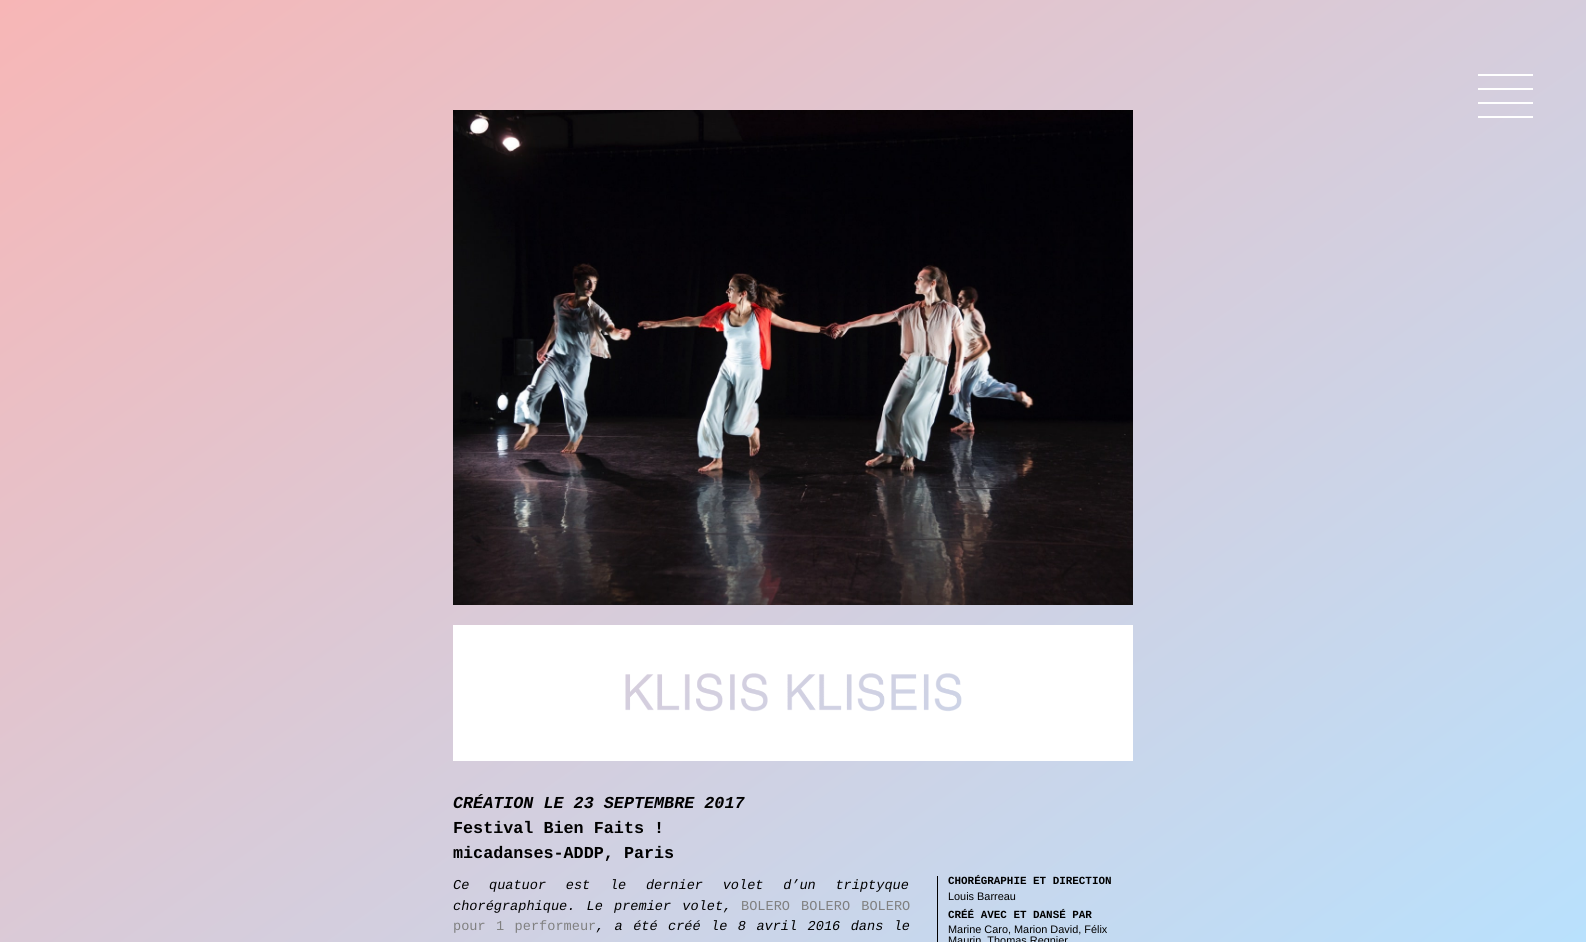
#include <cairo.h>
#include <math.h>
#include <stddef.h>

static cairo_t *c;
static void C(unsigned color){cairo_set_source_rgb(c, (color >> 16) / 255.0, (color >> 8 & 255) / 255.0, (color & 255) / 255.0);}
static void F(const char *family, double size, int italic, int bold){cairo_select_font_face(c, family, italic ? CAIRO_FONT_SLANT_ITALIC : CAIRO_FONT_SLANT_NORMAL,bold ? CAIRO_FONT_WEIGHT_BOLD : CAIRO_FONT_WEIGHT_NORMAL);cairo_set_font_size(c, size);}
static void T(double x, double y, const char *s){cairo_move_to(c, x, y);cairo_show_text(c, s);}
static void L(double x, double y, const char *s, double letter, double word){cairo_move_to(c, x, y);while (*s) {char ch[5] = {0};int n = 0;do ch[n++] = *s++; while ((*s & 0xC0) == 0x80);cairo_show_text(c, ch);cairo_rel_move_to(c, letter + word * (*ch == ' '), 0);}}
static void R(double x, double y, double w, double h){cairo_rectangle(c, x, y, w, h);cairo_fill(c);}
static void I(const char *path, double x, double y, double w, double h){cairo_surface_t *image = cairo_image_surface_create_from_png(path);cairo_save(c);cairo_set_source_surface(c, image, x, y);cairo_rectangle(c, x, y, w, h);cairo_fill(c);cairo_restore(c);cairo_surface_destroy(image);}
int main(void) {
cairo_surface_t *surface = cairo_image_surface_create(CAIRO_FORMAT_RGB24, 1586, 942);
c = cairo_create(surface);
cairo_font_options_t *options = cairo_font_options_create();
cairo_font_options_set_hint_metrics(options, CAIRO_HINT_METRICS_OFF);
cairo_font_options_set_hint_style(options, CAIRO_HINT_STYLE_NONE);
cairo_set_font_options(c, options);
cairo_set_miter_limit(c, 4);
cairo_pattern_t *gradient;
C(0xffffff);
cairo_paint(c);
gradient = cairo_pattern_create_linear(1275,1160,311,-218);
cairo_pattern_add_color_stop_rgba(gradient,0,0.725,0.882,0.992,1);
cairo_pattern_add_color_stop_rgba(gradient,1,0.969,0.714,0.714,1);
cairo_set_source(c,gradient);
cairo_pattern_destroy(gradient);
R(0,0,1586,942);
C(0xffffff);
R(1478,74,55,2);
R(1478,88,55,2);
R(1478,102,55,2);
R(1478,116,55,2);
I("1.png",453,110,680,495);
I("2.png",453,625,680,136);
F("Liberation Mono",16.75,1,1);
C(0x000000);
T(453,808,"CRÉATION LE 23 SEPTEMBRE 2017");
F("Liberation Mono",16.75,0,1);
T(453,833,"Festival Bien Faits !");
T(453,858,"micadanses-ADDP, Paris");
F("Liberation Mono",13.6,1,0);
L(453,889,"Ce quatuor est le dernier volet d’un triptyque",0,11.5);
L(453,910,"chorégraphique. Le premier volet,",0,3);
F("Liberation Mono",13.6,0,0);
C(0x808080);
L(741,910,"BOLERO BOLERO BOLERO",0,3);
L(453,930,"pour 1 performeur",0,2.25);
F("Liberation Mono",13.6,1,0);
C(0x000000);
L(596,930,", a été créé le 8 avril 2016 dans le",0,2.25);
R(937,876,1,66);
F("Liberation Mono",10.9,0,1);
T(948,884,"CHORÉGRAPHIE ET DIRECTION");
F("Liberation Sans",10.9,0,0);
T(948,900,"Louis Barreau");
F("Liberation Mono",10.9,0,1);
T(948,918,"CRÉÉ AVEC ET DANSÉ PAR");
F("Liberation Sans",10.9,0,0);
T(948,933,"Marine Caro, Marion David, Félix");
T(948,944,"Maurin, Thomas Regnier");
cairo_surface_write_to_png(surface, "o.png");
cairo_font_options_destroy(options);
cairo_destroy(c);
cairo_surface_destroy(surface);
return 0;
}
